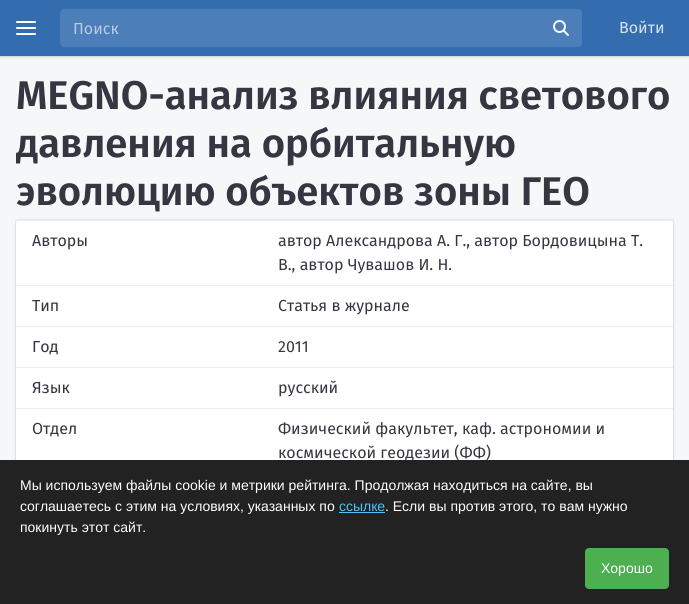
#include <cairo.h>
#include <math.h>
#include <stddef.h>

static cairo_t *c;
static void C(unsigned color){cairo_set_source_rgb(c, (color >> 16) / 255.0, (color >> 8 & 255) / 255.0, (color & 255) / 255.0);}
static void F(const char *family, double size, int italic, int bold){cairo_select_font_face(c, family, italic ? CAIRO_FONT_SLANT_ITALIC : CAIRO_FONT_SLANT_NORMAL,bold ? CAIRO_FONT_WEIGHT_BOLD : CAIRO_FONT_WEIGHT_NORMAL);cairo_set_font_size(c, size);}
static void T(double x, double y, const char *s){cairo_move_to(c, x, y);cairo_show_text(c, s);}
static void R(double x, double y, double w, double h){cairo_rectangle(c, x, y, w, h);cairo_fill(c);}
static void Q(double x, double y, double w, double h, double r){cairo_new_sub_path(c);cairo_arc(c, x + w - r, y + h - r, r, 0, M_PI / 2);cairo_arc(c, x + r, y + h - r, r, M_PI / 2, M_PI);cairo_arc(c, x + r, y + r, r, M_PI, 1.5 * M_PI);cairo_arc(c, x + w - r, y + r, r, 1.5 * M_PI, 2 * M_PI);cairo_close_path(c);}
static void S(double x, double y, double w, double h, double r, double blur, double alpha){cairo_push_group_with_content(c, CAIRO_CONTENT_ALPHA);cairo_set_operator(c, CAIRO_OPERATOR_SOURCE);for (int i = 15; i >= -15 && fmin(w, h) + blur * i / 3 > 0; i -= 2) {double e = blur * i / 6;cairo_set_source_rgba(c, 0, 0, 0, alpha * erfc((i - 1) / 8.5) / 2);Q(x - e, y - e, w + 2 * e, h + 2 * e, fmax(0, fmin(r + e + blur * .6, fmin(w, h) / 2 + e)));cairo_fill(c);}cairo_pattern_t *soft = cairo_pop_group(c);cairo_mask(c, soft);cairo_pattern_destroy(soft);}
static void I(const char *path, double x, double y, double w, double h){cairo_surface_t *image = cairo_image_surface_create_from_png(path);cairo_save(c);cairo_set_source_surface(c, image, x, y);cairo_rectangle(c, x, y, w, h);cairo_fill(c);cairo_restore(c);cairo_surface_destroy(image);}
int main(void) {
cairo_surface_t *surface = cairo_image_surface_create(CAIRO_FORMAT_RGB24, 689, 604);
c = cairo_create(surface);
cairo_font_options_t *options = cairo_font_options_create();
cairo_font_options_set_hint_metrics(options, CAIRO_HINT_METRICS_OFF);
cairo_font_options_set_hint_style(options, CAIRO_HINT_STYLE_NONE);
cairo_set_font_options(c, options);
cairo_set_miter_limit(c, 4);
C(0xf6f7f9);
cairo_paint(c);
C(0x14141f);
S(0,1,689,56,0,1.5,.15);
cairo_rectangle(c,-.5,-.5,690,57);
cairo_set_source_rgba(c,0.078,0.078,0.122,0.05);
cairo_set_line_width(c,1);
cairo_stroke(c);
C(0x346cb0);
R(0,0,689,56);
C(0xffffff);
Q(16,27,20,2,1);
cairo_fill(c);
Q(16,21,20,2,1);
cairo_fill(c);
Q(16,33,20,2,1);
cairo_fill(c);
C(0x4c7eb9);
Q(60,9,522,38,4);
cairo_fill(c);
F("Fira Sans",16,0,0);
C(0xb7cbe3);
T(73,34,"Поиск");
I("1.png",553,20,16,16);
C(0xd6e2ef);
T(619,33,"Войти");
F("Fira Sans SemiBold",40,0,0);
C(0x363642);
T(16,109,"MEGNO-анализ влияния светового");
T(16,157,"давления на орбитальную");
T(16,205,"эволюцию объектов зоны ГЕО");
C(0x14141f);
S(16,221,657,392,4,1.5,.15);
cairo_rectangle(c,15.5,219.5,658,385);
cairo_set_source_rgba(c,0.078,0.078,0.122,0.05);
cairo_stroke(c);
C(0xffffff);
Q(16,220,657,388,4);
cairo_fill(c);
F("Fira Sans",16,0,0);
C(0x363642);
T(32,246,"Авторы");
C(0xecedf1);
R(16,220,657,1);
C(0x363642);
T(278,246,"автор Александрова А. Г., автор Бордовицына Т.");
T(278,270,"В., автор Чувашов И. Н.");
T(32,311,"Тип");
C(0xecedf1);
R(16,285,657,1);
C(0x363642);
T(278,311,"Статья в журнале");
T(32,352,"Год");
C(0xecedf1);
R(16,326,657,1);
C(0x363642);
T(278,352,"2011");
T(32,393,"Язык");
C(0xecedf1);
R(16,367,657,1);
C(0x363642);
T(278,393,"русский");
T(32,434,"Отдел");
C(0xecedf1);
R(16,408,657,1);
C(0x363642);
T(278,434,"Физический факультет, каф. астрономии и");
T(278,458,"космической геодезии (ФФ)");
C(0x222222);
R(0,460,689,144);
F("Liberation Sans",14,0,0);
C(0xffffff);
T(20,490,"Мы используем файлы cookie и метрики рейтинга. Продолжая находиться на сайте, вы");
T(20,511,"соглашаетесь с этим на условиях, указанных по");
C(0x4fc3f7);
T(339,511,"ссылке");
R(339,512,46,1);
C(0xffffff);
T(385,511,". Если вы против этого, то вам нужно");
T(20,532,"покинуть этот сайт.");
C(0x4caf50);
Q(585,548,84,41,4);
cairo_fill(c);
C(0xffffff);
T(601,573,"Хорошо");
cairo_surface_write_to_png(surface, "o.png");
cairo_font_options_destroy(options);
cairo_destroy(c);
cairo_surface_destroy(surface);
return 0;
}
